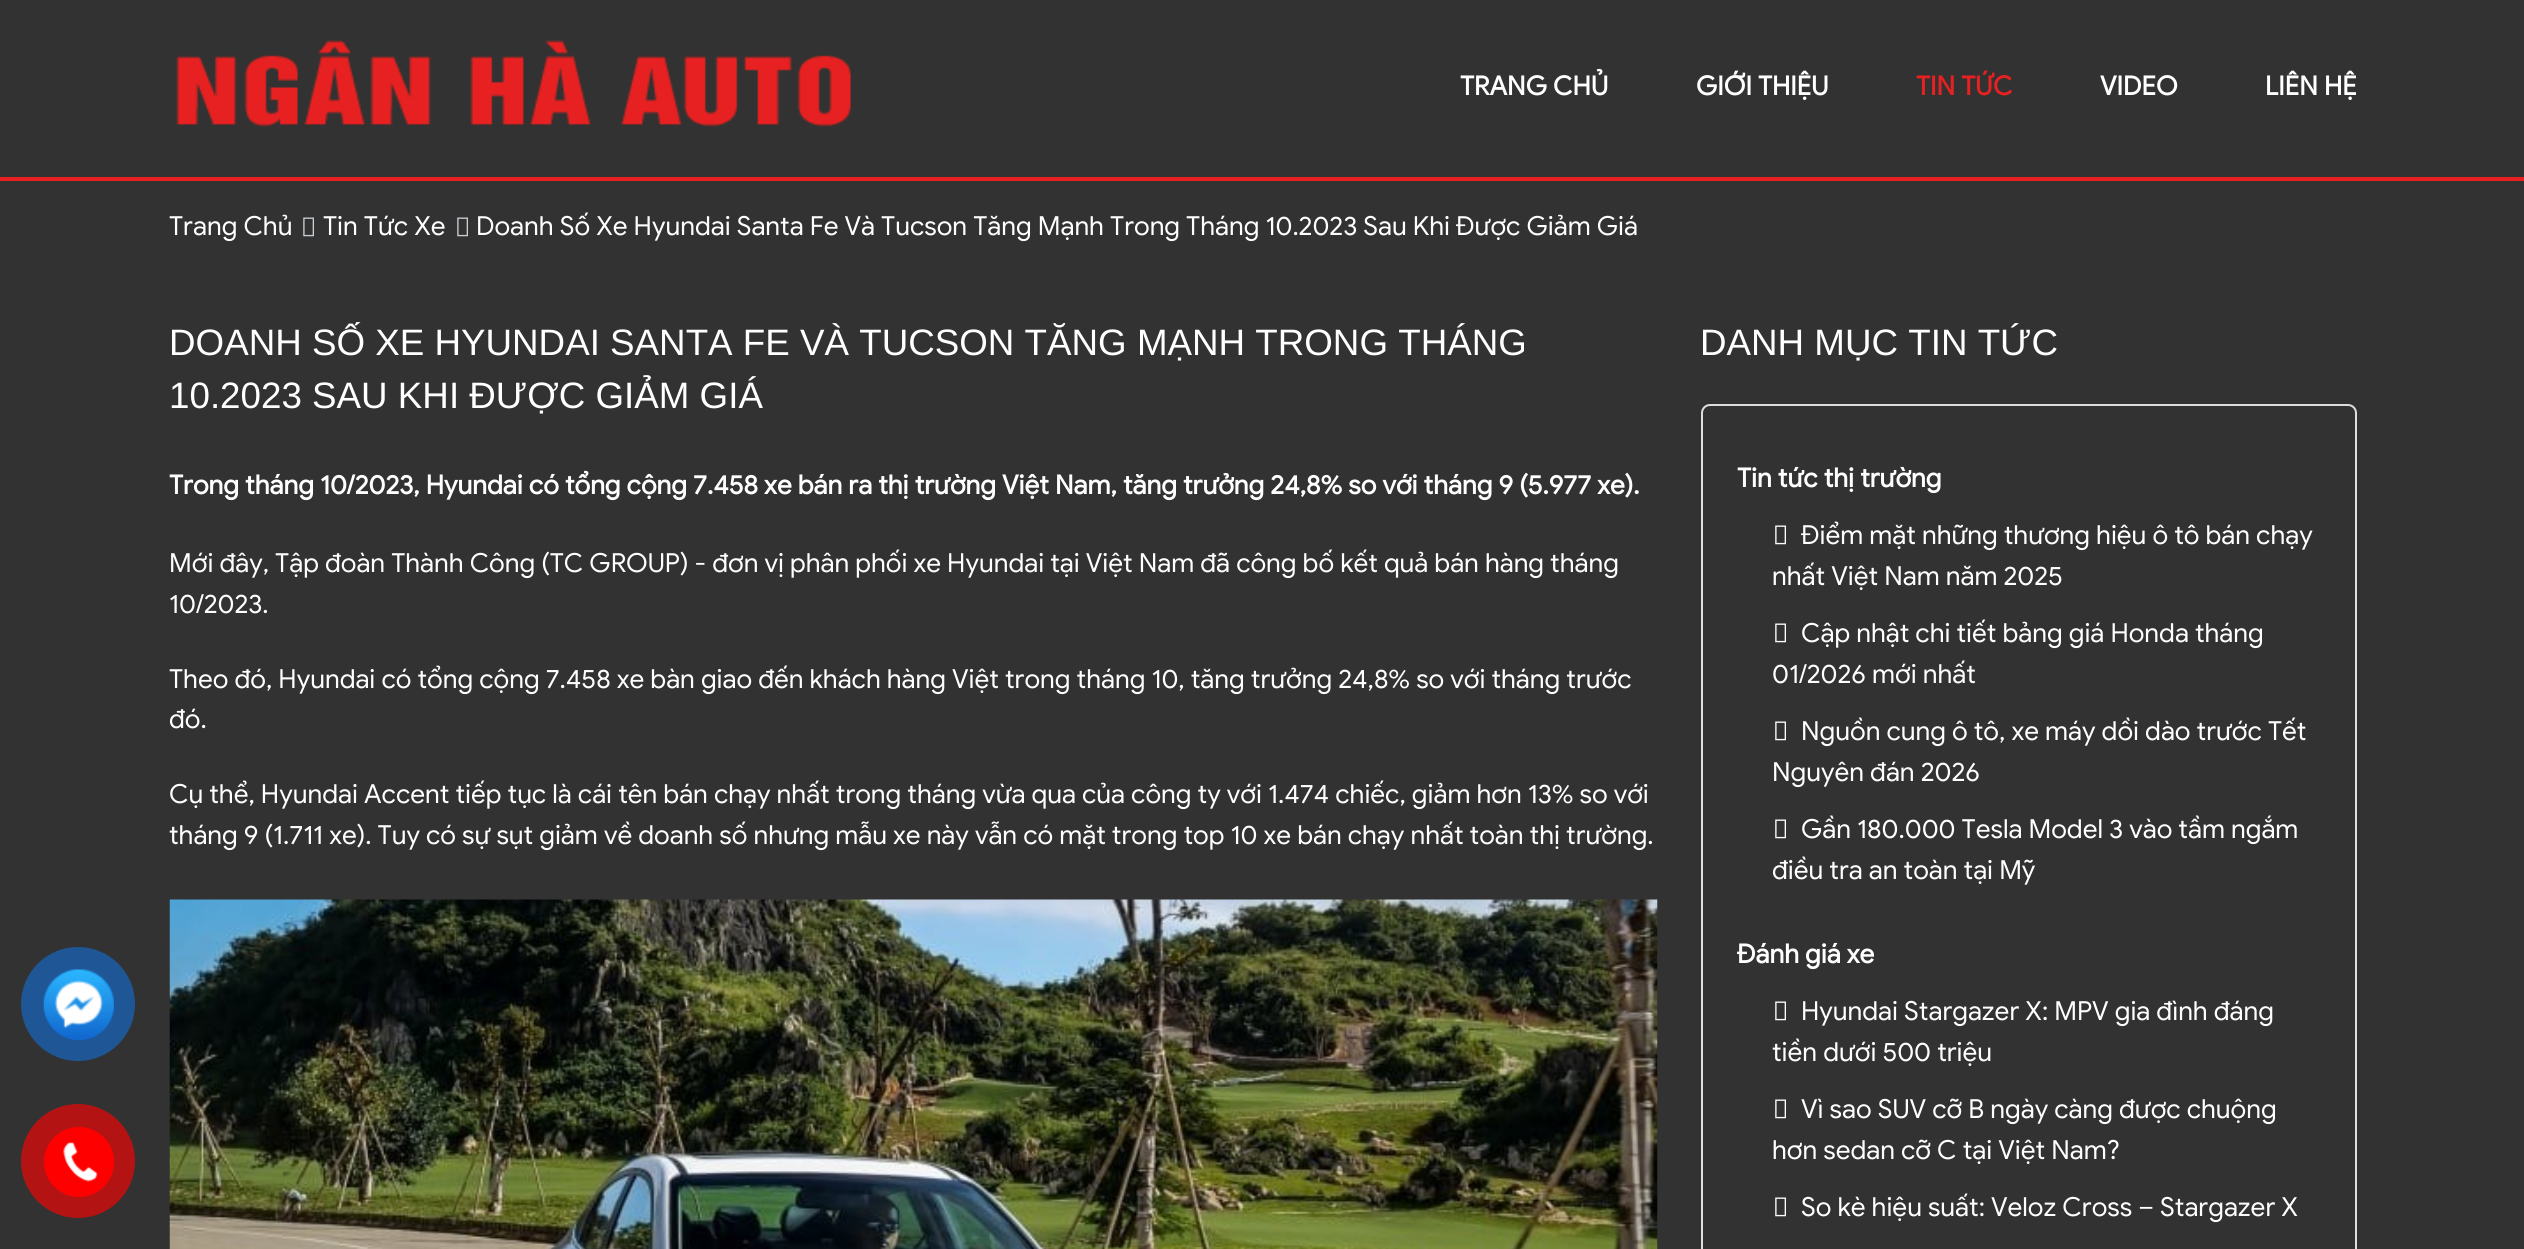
#include <cairo.h>
#include <math.h>
#include <stddef.h>

static cairo_t *c;
static void C(unsigned color){cairo_set_source_rgb(c, (color >> 16) / 255.0, (color >> 8 & 255) / 255.0, (color & 255) / 255.0);}
static void F(const char *family, double size, int italic, int bold){cairo_select_font_face(c, family, italic ? CAIRO_FONT_SLANT_ITALIC : CAIRO_FONT_SLANT_NORMAL,bold ? CAIRO_FONT_WEIGHT_BOLD : CAIRO_FONT_WEIGHT_NORMAL);cairo_set_font_size(c, size);}
static void T(double x, double y, const char *s){cairo_move_to(c, x, y);cairo_show_text(c, s);}
static void R(double x, double y, double w, double h){cairo_rectangle(c, x, y, w, h);cairo_fill(c);}
static void Q(double x, double y, double w, double h, double r){cairo_new_sub_path(c);cairo_arc(c, x + w - r, y + h - r, r, 0, M_PI / 2);cairo_arc(c, x + r, y + h - r, r, M_PI / 2, M_PI);cairo_arc(c, x + r, y + r, r, M_PI, 1.5 * M_PI);cairo_arc(c, x + w - r, y + r, r, 1.5 * M_PI, 2 * M_PI);cairo_close_path(c);}
static void I(const char *path, double x, double y, double w, double h){cairo_surface_t *image = cairo_image_surface_create_from_png(path);cairo_save(c);cairo_set_source_surface(c, image, x, y);cairo_rectangle(c, x, y, w, h);cairo_fill(c);cairo_restore(c);cairo_surface_destroy(image);}
int main(void) {
cairo_surface_t *surface = cairo_image_surface_create(CAIRO_FORMAT_RGB24, 2524, 1249);
c = cairo_create(surface);
cairo_font_options_t *options = cairo_font_options_create();
cairo_font_options_set_hint_metrics(options, CAIRO_HINT_METRICS_OFF);
cairo_font_options_set_hint_style(options, CAIRO_HINT_STYLE_NONE);
cairo_set_font_options(c, options);
cairo_set_miter_limit(c, 4);
C(0x323232);
cairo_paint(c);
C(0x1e5696);
cairo_arc(c,78,1004,57,0,2 * M_PI);
cairo_fill(c);
C(0x126bd1);
cairo_arc(c,79,1005,35,0,2 * M_PI);
cairo_fill(c);
I("1.png",43,969,71,71);
C(0xb41313);
cairo_arc(c,78,1161,57,0,2 * M_PI);
cairo_fill(c);
C(0xff0000);
cairo_arc(c,79,1162,35,0,2 * M_PI);
cairo_fill(c);
I("2.png",63,1142,35,40);
C(0xe72121);
R(0,177,2524,4);
I("3.png",176,40,675,87);
F("Google Sans",26.25,0,1);
C(0xffffff);
T(1460,95,"TRANG CHỦ");
T(1696,95,"GIỚI THIỆU");
C(0xe72121);
T(1916,95,"TIN TỨC");
C(0xffffff);
T(2100,95,"VIDEO");
T(2265,95,"LIÊN HỆ");
F("Google Sans",26.25,0,0);
T(169,235,"Trang Chủ");
I("4.png",303,217,11,20);
T(323,235,"Tin Tức Xe");
I("4.png",457,217,11,20);
T(476,235,"Doanh Số Xe Hyundai Santa Fe Và Tucson Tăng Mạnh Trong Tháng 10.2023 Sau Khi Được Giảm Giá");
F("Liberation Sans",36.75,0,0);
T(169,355,"DOANH SỐ XE HYUNDAI SANTA FE VÀ TUCSON TĂNG MẠNH TRONG THÁNG");
T(169,408,"10.2023 SAU KHI ĐƯỢC GIẢM GIÁ");
F("Google Sans",26.25,0,1);
T(169,494,"Trong tháng 10/2023, Hyundai có tổng cộng 7.458 xe bán ra thị trường Việt Nam, tăng trưởng 24,8% so với tháng 9 (5.977 xe).");
F("Google Sans",26.25,0,0);
T(169,572,"Mới đây, Tập đoàn Thành Công (TC GROUP) - đơn vị phân phối xe Hyundai tại Việt Nam đã công bố kết quả bán hàng tháng");
T(169,613,"10/2023.");
T(169,688,"Theo đó, Hyundai có tổng cộng 7.458 xe bàn giao đến khách hàng Việt trong tháng 10, tăng trưởng 24,8% so với tháng trước");
T(169,728,"đó.");
T(169,803,"Cụ thể, Hyundai Accent tiếp tục là cái tên bán chạy nhất trong tháng vừa qua của công ty với 1.474 chiếc, giảm hơn 13% so với");
T(169,844,"tháng 9 (1.711 xe). Tuy có sự sụt giảm về doanh số nhưng mẫu xe này vẫn có mặt trong top 10 xe bán chạy nhất toàn thị trường.");
I("5.png",169,899,1489,350);
F("Liberation Sans",36.75,0,0);
T(1700,355,"DANH MỤC TIN TỨC");
Q(1702,405,654,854,8);
C(0xdededc);
cairo_stroke(c);
F("Google Sans",26.25,0,1);
C(0xffffff);
T(1737,487,"Tin tức thị trường");
I("6.png",1775,525,11,20);
F("Google Sans",26.25,0,0);
T(1801,544,"Điểm mặt những thương hiệu ô tô bán chạy");
T(1772,585,"nhất Việt Nam năm 2025");
I("6.png",1775,623,11,20);
T(1801,642,"Cập nhật chi tiết bảng giá Honda tháng");
T(1772,683,"01/2026 mới nhất");
I("6.png",1775,721,11,20);
T(1801,740,"Nguồn cung ô tô, xe máy dồi dào trước Tết");
T(1772,781,"Nguyên đán 2026");
I("6.png",1775,819,11,20);
T(1801,838,"Gần 180.000 Tesla Model 3 vào tầm ngắm");
T(1772,879,"điều tra an toàn tại Mỹ");
F("Google Sans",26.25,0,1);
T(1737,963,"Đánh giá xe");
I("6.png",1775,1001,11,20);
F("Google Sans",26.25,0,0);
T(1801,1020,"Hyundai Stargazer X: MPV gia đình đáng");
T(1772,1061,"tiền dưới 500 triệu");
I("6.png",1775,1099,11,20);
T(1801,1118,"Vì sao SUV cỡ B ngày càng được chuộng");
T(1772,1159,"hơn sedan cỡ C tại Việt Nam?");
I("6.png",1775,1197,11,20);
T(1801,1216,"So kè hiệu suất: Veloz Cross – Stargazer X");
cairo_surface_write_to_png(surface, "o.png");
cairo_font_options_destroy(options);
cairo_destroy(c);
cairo_surface_destroy(surface);
return 0;
}
